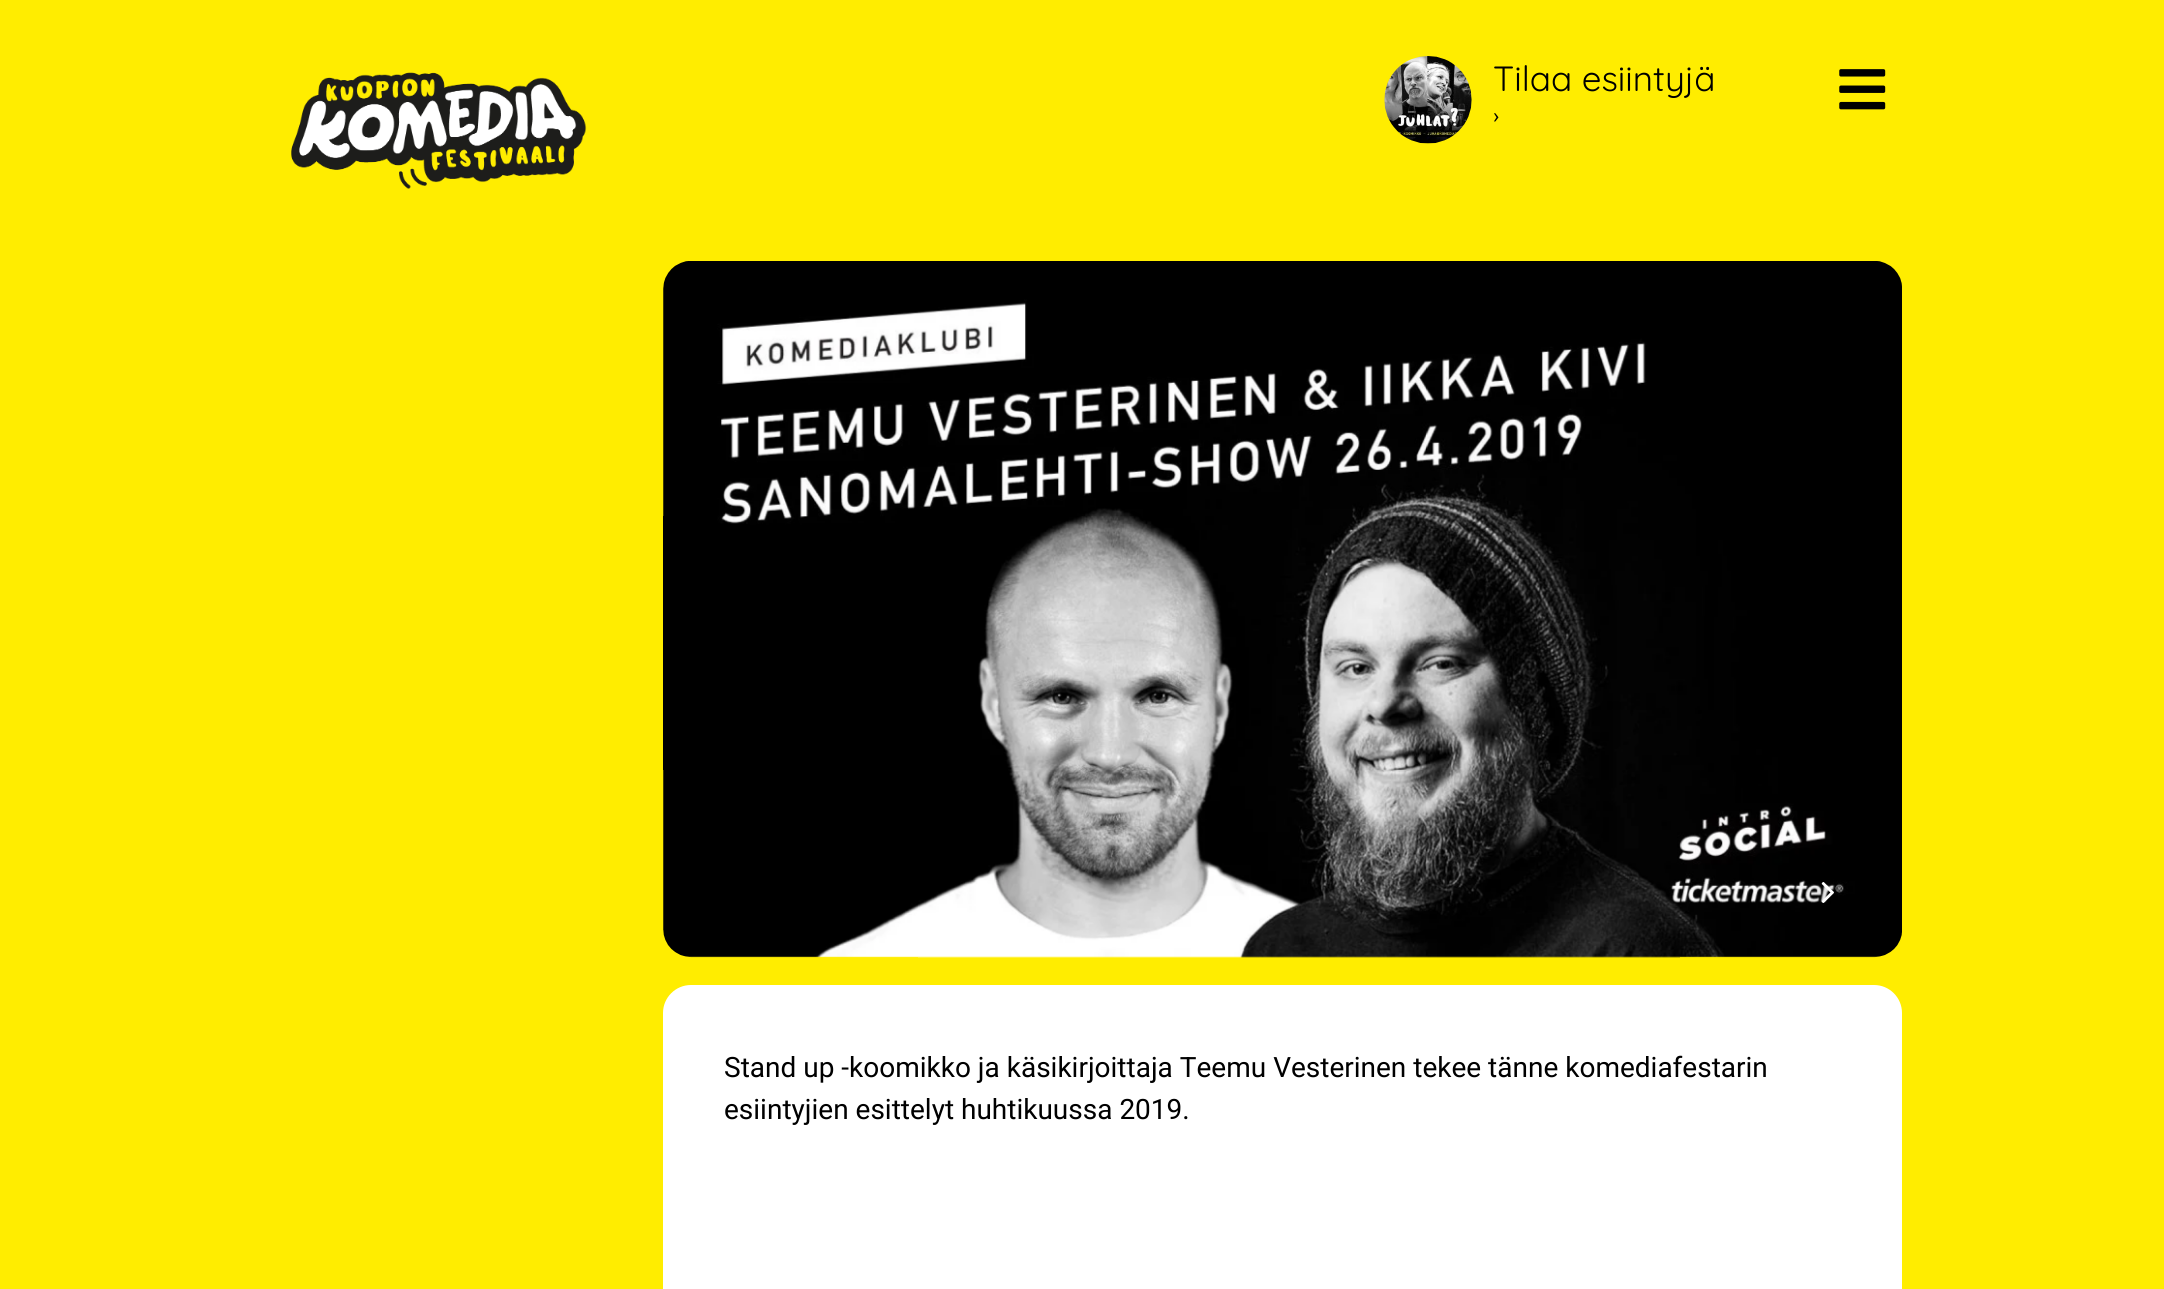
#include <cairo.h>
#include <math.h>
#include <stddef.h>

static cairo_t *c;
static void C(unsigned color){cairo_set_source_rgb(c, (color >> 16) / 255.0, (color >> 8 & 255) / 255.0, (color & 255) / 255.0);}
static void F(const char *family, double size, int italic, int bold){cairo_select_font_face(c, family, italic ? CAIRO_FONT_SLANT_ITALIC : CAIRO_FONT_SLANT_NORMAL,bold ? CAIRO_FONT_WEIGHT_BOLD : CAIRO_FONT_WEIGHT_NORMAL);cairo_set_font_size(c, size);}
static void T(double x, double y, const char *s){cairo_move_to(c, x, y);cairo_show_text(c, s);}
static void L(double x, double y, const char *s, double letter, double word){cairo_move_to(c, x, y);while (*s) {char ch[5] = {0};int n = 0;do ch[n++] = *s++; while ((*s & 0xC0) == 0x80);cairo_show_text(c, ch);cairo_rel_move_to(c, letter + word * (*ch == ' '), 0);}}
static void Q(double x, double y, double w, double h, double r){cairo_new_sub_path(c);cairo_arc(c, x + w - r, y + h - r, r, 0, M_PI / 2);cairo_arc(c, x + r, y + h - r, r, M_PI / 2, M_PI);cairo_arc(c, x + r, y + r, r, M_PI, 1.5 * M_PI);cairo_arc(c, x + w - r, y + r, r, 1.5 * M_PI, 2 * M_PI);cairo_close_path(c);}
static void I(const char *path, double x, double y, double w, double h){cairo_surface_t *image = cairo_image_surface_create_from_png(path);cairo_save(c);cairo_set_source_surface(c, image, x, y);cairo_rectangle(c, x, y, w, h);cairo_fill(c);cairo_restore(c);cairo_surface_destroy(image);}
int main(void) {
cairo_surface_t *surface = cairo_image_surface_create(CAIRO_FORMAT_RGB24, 2164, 1289);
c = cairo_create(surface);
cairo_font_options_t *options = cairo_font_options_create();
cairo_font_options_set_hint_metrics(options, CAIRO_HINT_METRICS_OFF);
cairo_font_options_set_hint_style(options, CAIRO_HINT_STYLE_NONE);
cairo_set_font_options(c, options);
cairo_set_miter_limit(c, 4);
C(0xffed00);
cairo_paint(c);
I("1.png",291,72,296,117);
I("2.png",1384,56,88,88);
F("Quicksand Light",35,0,0);
C(0x000000);
T(1493,91,"Tilaa esiintyjä");
F("Roboto",21,0,0);
L(1493,123,"›",1,0);
I("3.png",1839,69,47,41);
I("4.png",663,261,1239,697);
I("5.png",1821,882,13,21);
C(0xffffff);
Q(663,985,1239,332,28);
cairo_fill(c);
F("Roboto",28,0,0);
C(0x000000);
T(724,1077,"Stand up -koomikko ja käsikirjoittaja Teemu Vesterinen tekee tänne komediafestarin");
T(724,1119,"esiintyjien esittelyt huhtikuussa 2019.");
cairo_surface_write_to_png(surface, "o.png");
cairo_font_options_destroy(options);
cairo_destroy(c);
cairo_surface_destroy(surface);
return 0;
}
